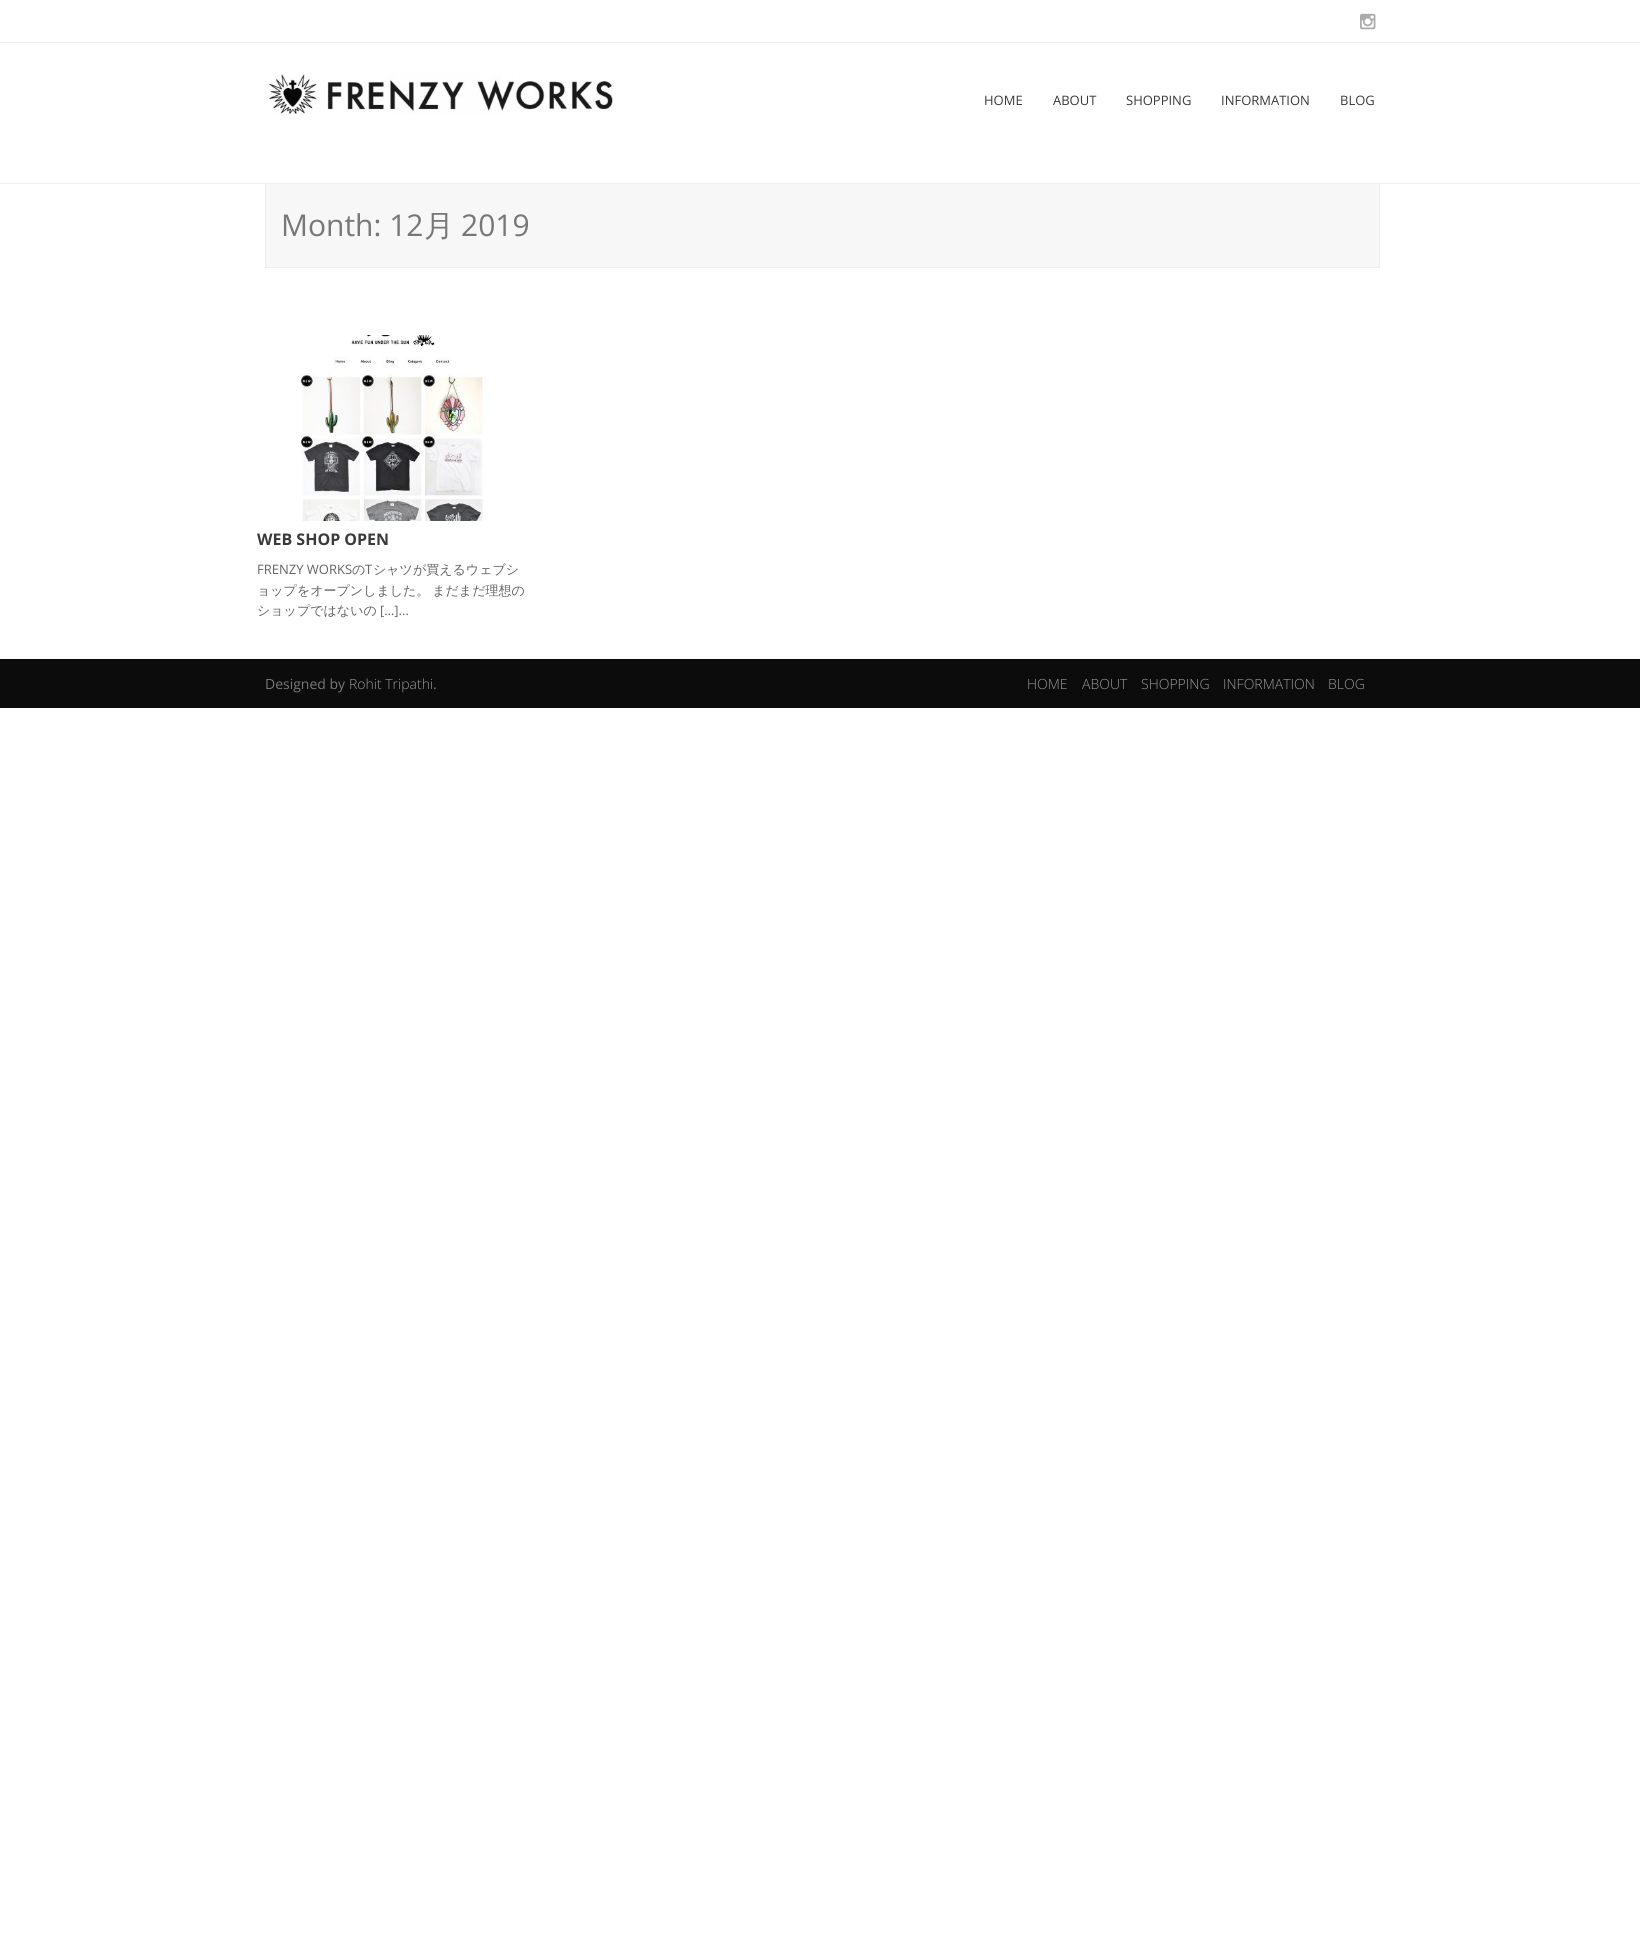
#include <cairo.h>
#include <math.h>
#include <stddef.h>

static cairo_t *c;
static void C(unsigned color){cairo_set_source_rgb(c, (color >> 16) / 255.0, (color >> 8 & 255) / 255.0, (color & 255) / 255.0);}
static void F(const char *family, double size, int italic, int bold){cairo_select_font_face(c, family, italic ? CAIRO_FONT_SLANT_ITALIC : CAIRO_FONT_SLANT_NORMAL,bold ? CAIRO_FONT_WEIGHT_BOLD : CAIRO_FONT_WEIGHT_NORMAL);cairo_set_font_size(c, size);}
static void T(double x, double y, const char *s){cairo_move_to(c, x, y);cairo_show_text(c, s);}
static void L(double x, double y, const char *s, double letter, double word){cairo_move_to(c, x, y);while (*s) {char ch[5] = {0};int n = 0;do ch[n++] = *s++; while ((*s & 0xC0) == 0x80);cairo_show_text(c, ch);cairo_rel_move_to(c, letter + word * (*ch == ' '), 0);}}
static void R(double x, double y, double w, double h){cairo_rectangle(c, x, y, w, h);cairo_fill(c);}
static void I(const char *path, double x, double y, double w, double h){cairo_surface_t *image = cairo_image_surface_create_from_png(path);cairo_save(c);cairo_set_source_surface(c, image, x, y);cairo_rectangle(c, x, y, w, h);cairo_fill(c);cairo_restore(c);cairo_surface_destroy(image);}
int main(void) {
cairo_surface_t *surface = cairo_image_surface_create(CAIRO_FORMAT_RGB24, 1640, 1958);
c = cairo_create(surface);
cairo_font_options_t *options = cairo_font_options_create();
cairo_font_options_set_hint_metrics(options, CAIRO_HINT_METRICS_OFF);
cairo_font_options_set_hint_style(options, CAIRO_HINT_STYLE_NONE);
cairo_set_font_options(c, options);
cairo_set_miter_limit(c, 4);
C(0xffffff);
cairo_paint(c);
C(0xeeeeee);
R(0,42,1640,1);
I("1.png",1360,13,16,17);
R(0,183,1640,1);
I("2.png",266,73,347,42);
F("Open Sans",13,0,0);
C(0x3a3a3a);
T(984,105,"HOME");
T(1053,105,"ABOUT");
T(1126,105,"SHOPPING");
T(1221,105,"INFORMATION");
T(1340,105,"BLOG");
C(0xf7f7f7);
R(266,184,1113,83);
C(0xeeeeee);
R(1379,184,1,84);
R(265,267,1115,1);
R(265,184,1,84);
F("Open Sans",30,0,0);
C(0x777777);
T(281,236,"Month: 12");
F("WenQuanYi Zen Hei Medium",30,0,0);
T(424,236,"月");
F("Open Sans",30,0,0);
T(461,236,"2019");
I("3.png",300,335,185,186);
F("Open Sans",16,0,1);
C(0x3a3a3a);
T(257,545,"WEB SHOP OPEN");
F("Open Sans",13,0,0);
C(0x636363);
T(257,574,"FRENZY WORKS");
F("WenQuanYi Zen Hei Medium",13,0,0);
T(352,574,"の");
F("Open Sans",13,0,0);
T(365,574,"T");
F("WenQuanYi Zen Hei Medium",13,0,0);
T(373,574,"シャツが買えるウェブシ");
L(257,595,"ョップをオープンしました。 まだまだ理想の",0,-1);
T(257,615,"ショップではないの");
F("Open Sans",13,0,0);
T(380,615,"[…]...");
C(0x0c0c0c);
R(0,659,1640,49);
F("Open Sans",14,0,0);
C(0x777777);
T(265,689,"Designed by");
F("Open Sans Light",14,0,0);
C(0x999999);
T(349,689,"Rohit Tripathi");
F("Open Sans",14,0,0);
C(0x777777);
T(433,689,".");
F("Open Sans Light",14,0,0);
C(0x999999);
T(1027,689,"HOME");
T(1082,689,"ABOUT");
T(1141,689,"SHOPPING");
T(1223,689,"INFORMATION");
T(1328,689,"BLOG");
cairo_surface_write_to_png(surface, "o.png");
cairo_font_options_destroy(options);
cairo_destroy(c);
cairo_surface_destroy(surface);
return 0;
}
